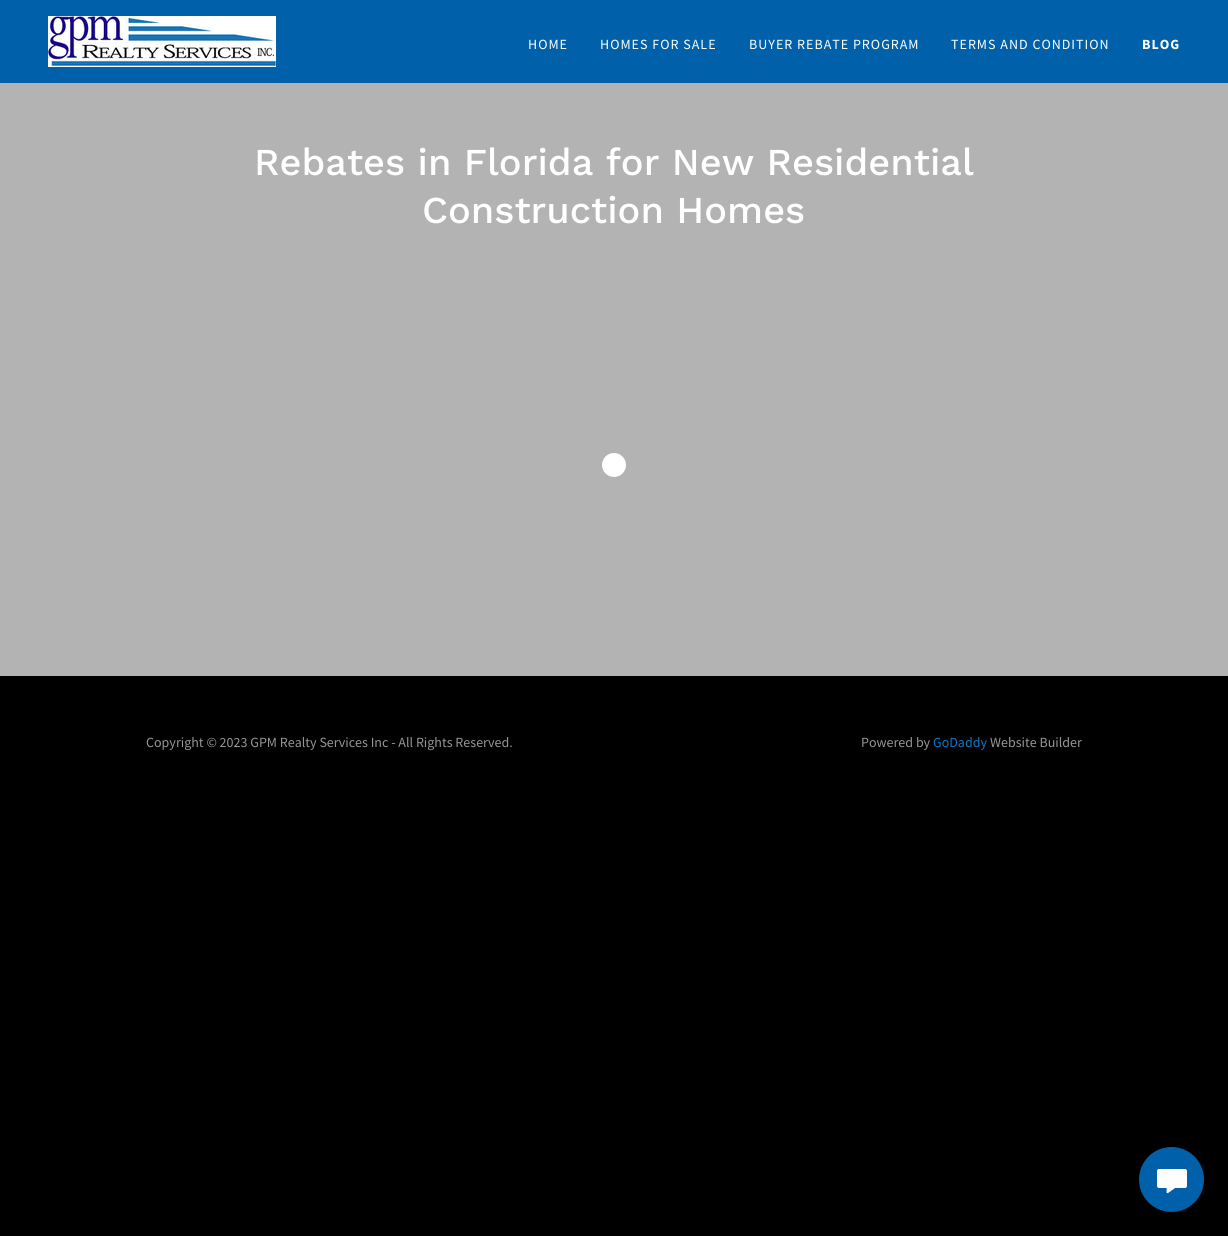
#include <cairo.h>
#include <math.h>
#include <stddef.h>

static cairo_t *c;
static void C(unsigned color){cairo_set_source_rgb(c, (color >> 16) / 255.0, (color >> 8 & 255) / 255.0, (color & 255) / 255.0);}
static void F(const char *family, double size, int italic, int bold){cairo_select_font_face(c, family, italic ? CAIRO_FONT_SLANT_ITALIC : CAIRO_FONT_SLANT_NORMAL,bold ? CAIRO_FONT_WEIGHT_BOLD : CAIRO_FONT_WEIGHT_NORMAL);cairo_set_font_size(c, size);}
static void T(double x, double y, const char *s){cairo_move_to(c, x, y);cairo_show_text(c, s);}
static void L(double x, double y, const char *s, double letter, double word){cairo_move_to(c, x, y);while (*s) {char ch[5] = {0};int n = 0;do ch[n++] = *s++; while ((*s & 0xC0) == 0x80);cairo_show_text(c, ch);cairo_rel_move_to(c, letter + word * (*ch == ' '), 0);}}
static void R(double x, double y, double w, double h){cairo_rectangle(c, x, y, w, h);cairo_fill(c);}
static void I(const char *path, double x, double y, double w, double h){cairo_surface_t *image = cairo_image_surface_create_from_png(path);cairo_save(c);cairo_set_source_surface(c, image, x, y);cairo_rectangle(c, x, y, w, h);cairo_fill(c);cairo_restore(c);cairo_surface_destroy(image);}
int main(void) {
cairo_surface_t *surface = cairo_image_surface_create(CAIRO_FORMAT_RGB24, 1228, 1236);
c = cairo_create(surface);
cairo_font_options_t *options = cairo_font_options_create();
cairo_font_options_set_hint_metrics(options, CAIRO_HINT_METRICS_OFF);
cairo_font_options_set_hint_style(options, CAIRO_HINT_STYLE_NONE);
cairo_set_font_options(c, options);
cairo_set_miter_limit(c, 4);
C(0x000000);
cairo_paint(c);
C(0x0061aa);
R(0,0,1228,83);
I("1.png",48,16,228,51);
F("Source Sans Pro",14,0,0);
C(0xffffff);
L(528,49,"HOME",1,0);
L(600,49,"HOMES FOR SALE",1,0);
L(749,49,"BUYER REBATE PROGRAM",1,0);
L(951,49,"TERMS AND CONDITION",1,0);
F("Source Sans Pro",14,0,1);
L(1142,49,"BLOG",1,0);
C(0xb3b3b3);
R(0,83,1228,593);
F("Work Sans Medium",38,0,0);
C(0xffffff);
T(254,175,"Rebates in Florida for New Residential");
T(422,223,"Construction Homes");
cairo_new_path(c);
cairo_arc(c,614,465,12,0,2 * M_PI);
cairo_fill(c);
F("Source Sans Pro",14,0,0);
C(0x969696);
T(146,747,"Copyright © 2023 GPM Realty Services Inc - All Rights Reserved.");
T(861,747,"Powered by");
C(0x0c78c9);
T(933,747,"GoDaddy");
C(0x969696);
T(990,747,"Website Builder");
C(0x0061aa);
cairo_new_path(c);
cairo_arc(c,1171.5,1179.5,32.5,0,2 * M_PI);
cairo_fill(c);
I("2.png",1157,1169,30,25);
cairo_surface_write_to_png(surface, "o.png");
cairo_font_options_destroy(options);
cairo_destroy(c);
cairo_surface_destroy(surface);
return 0;
}
